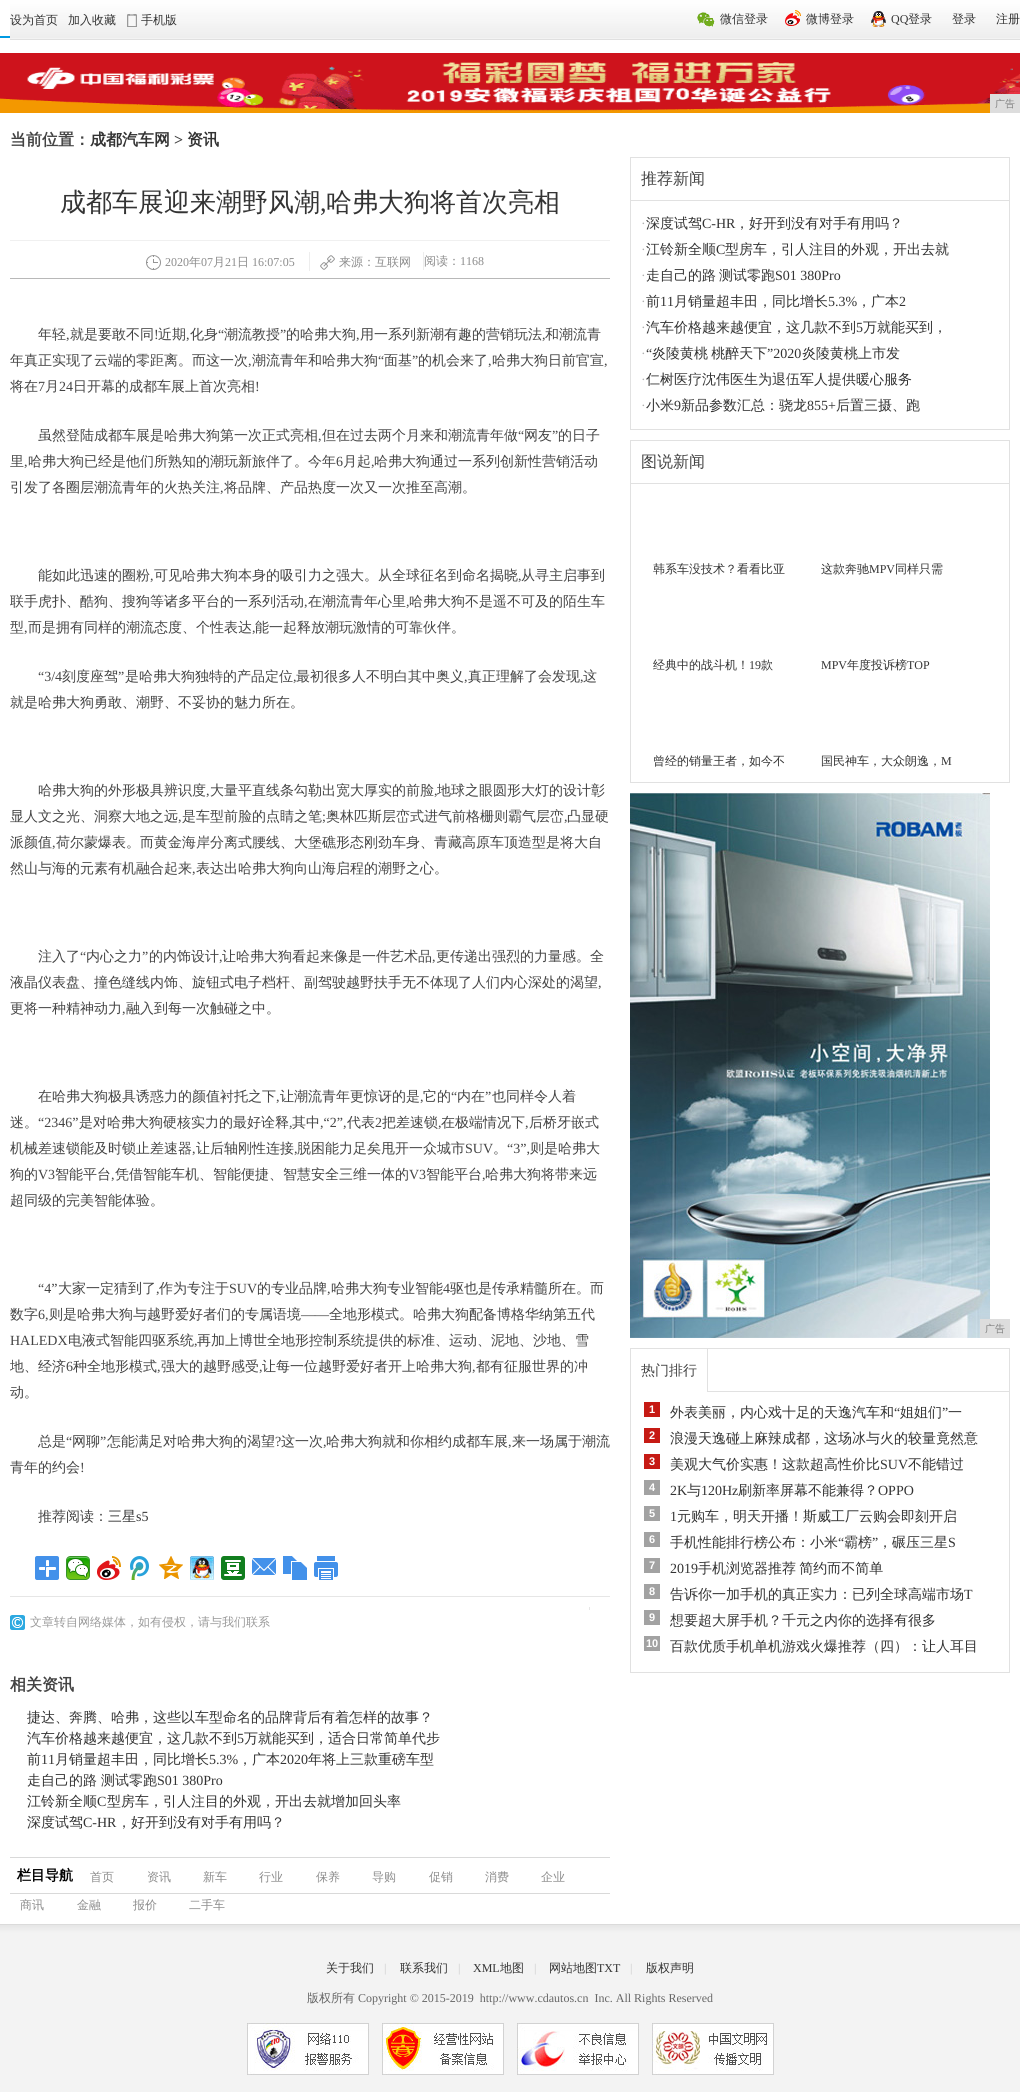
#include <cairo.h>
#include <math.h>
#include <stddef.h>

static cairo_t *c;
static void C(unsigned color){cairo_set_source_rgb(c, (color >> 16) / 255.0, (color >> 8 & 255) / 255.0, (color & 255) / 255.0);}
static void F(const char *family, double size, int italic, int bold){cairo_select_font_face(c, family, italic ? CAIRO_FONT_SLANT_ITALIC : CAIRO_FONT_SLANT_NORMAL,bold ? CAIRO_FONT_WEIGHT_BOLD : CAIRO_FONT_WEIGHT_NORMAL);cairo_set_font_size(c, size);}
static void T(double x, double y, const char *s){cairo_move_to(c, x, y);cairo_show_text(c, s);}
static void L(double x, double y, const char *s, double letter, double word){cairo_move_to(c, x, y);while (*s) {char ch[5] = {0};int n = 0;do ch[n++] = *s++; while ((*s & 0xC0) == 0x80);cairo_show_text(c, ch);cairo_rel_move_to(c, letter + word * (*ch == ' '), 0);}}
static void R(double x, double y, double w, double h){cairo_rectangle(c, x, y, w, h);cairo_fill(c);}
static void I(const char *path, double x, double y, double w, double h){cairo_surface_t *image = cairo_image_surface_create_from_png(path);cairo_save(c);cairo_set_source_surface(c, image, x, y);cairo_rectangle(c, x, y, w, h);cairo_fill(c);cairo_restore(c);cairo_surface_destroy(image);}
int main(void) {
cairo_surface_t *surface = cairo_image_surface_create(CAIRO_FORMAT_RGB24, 1020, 2092);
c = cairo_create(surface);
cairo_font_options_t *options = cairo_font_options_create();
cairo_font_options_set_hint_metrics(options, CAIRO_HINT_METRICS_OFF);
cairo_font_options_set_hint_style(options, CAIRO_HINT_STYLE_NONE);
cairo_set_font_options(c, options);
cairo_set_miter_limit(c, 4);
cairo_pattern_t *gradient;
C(0xffffff);
cairo_paint(c);
I("1.png",10,0,1010,40);
F("WenQuanYi Zen Hei Medium",12,0,0);
C(0x333333);
T(10,24,"设为首页");
T(68,24,"加入收藏");
I("2.png",127,14,10,13);
T(141,24,"手机版");
I("3.png",697,12,18,15);
T(720,23,"微信登录");
I("4.png",785,10,16,16);
T(806,23,"微博登录");
I("5.png",871,11,15,16);
F("Liberation Serif",12,0,0);
T(891,23,"QQ");
F("WenQuanYi Zen Hei Medium",12,0,0);
T(908,23,"登录");
T(952,23,"登录");
T(996,23,"注册");
C(0x009ae2);
R(0,36,10,2);
I("6.png",0,53,1020,60);
C(0xdddddd);
R(990,94,30,19);
F("WenQuanYi Zen Hei Medium",10,0,0);
C(0x808080);
T(995,107,"广告");
F("WenQuanYi Zen Hei",16,0,1);
C(0x444444);
T(10,145,"当前位置：");
C(0x333333);
T(90,145,"成都汽车网");
F("Liberation Serif",16,0,1);
C(0x444444);
T(174,145,">");
F("WenQuanYi Zen Hei",16,0,1);
C(0x333333);
T(187,145,"资讯");
F("WenQuanYi Zen Hei Medium",26,0,0);
T(60,211,"成都车展迎来潮野风潮");
F("Liberation Serif",26,0,0);
T(320,211,",");
F("WenQuanYi Zen Hei Medium",26,0,0);
T(326,211,"哈弗大狗将首次亮相");
C(0xf0f0f0);
R(10,240,600,1);
C(0xb8b8b8);
R(10,278,600,1);
I("7.png",146,255,15,15);
F("Liberation Serif",12,0,0);
C(0x8c8c8c);
T(165,266,"2020");
F("WenQuanYi Zen Hei Medium",12,0,0);
T(189,266,"年");
F("Liberation Serif",12,0,0);
T(201,266,"07");
F("WenQuanYi Zen Hei Medium",12,0,0);
T(213,266,"月");
F("Liberation Serif",12,0,0);
T(225,266,"21");
F("WenQuanYi Zen Hei Medium",12,0,0);
T(237,266,"日");
F("Liberation Serif",12,0,0);
T(252,266,"16:07:05");
I("8.png",320,255,15,15);
C(0xededed);
R(309,252,1,19);
F("WenQuanYi Zen Hei Medium",12,0,0);
C(0x8c8c8c);
T(339,266,"来源：互联网");
C(0xededed);
R(423,252,1,18);
C(0x8c8c8c);
T(424,265,"阅读：");
F("Liberation Serif",12,0,0);
T(460,265,"1168");
F("WenQuanYi Zen Hei Medium",14,0,0);
C(0x444444);
T(38,339,"年轻");
T(70,339,"就是要敢不同");
F("Liberation Serif",14,0,0);
T(154,339,"!");
F("WenQuanYi Zen Hei Medium",14,0,0);
T(158,339,"近期");
T(190,339,"化身");
F("Liberation Serif",14,0,0);
T(218,339,"“");
F("WenQuanYi Zen Hei Medium",14,0,0);
T(224,339,"潮流教授");
F("Liberation Serif",14,0,0);
T(280,339,"”");
F("WenQuanYi Zen Hei Medium",14,0,0);
T(286,339,"的哈弗大狗");
T(360,339,"用一系列新潮有趣的营销玩法");
T(545,339,"和潮流青");
F("Liberation Serif",14,0,0);
T(66,339,",");
T(186,339,",");
T(356,339,",");
T(542,339,",");
F("WenQuanYi Zen Hei Medium",14,0,0);
T(10,365,"年真正实现了云端的零距离。而这一次");
T(252,365,"潮流青年和哈弗大狗");
F("Liberation Serif",14,0,0);
T(378,365,"“");
F("WenQuanYi Zen Hei Medium",14,0,0);
T(384,365,"面基");
F("Liberation Serif",14,0,0);
T(412,365,"”");
F("WenQuanYi Zen Hei Medium",14,0,0);
T(418,365,"的机会来了");
T(492,365,"哈弗大狗日前官宣");
F("Liberation Serif",14,0,0);
T(248,365,",");
T(488,365,",");
T(604,365,",");
F("WenQuanYi Zen Hei Medium",14,0,0);
T(10,391,"将在");
F("Liberation Serif",14,0,0);
T(38,391,"7");
F("WenQuanYi Zen Hei Medium",14,0,0);
T(45,391,"月");
F("Liberation Serif",14,0,0);
T(59,391,"24");
F("WenQuanYi Zen Hei Medium",14,0,0);
T(73,391,"日开幕的成都车展上首次亮相");
F("Liberation Serif",14,0,0);
T(255,391,"!");
F("WenQuanYi Zen Hei Medium",14,0,0);
T(38,440,"虽然登陆成都车展是哈弗大狗第一次正式亮相");
T(322,440,"但在过去两个月来和潮流青年做");
F("Liberation Serif",14,0,0);
T(518,440,"“");
F("WenQuanYi Zen Hei Medium",14,0,0);
T(524,440,"网友");
F("Liberation Serif",14,0,0);
T(552,440,"”");
F("WenQuanYi Zen Hei Medium",14,0,0);
T(558,440,"的日子");
F("Liberation Serif",14,0,0);
T(318,440,",");
F("WenQuanYi Zen Hei Medium",14,0,0);
T(10,466,"里");
F("Liberation Serif",14,0,0);
T(24,466,",");
F("WenQuanYi Zen Hei Medium",14,0,0);
T(28,466,"哈弗大狗已经是他们所熟知的潮玩新旅伴了。今年");
F("Liberation Serif",14,0,0);
T(336,466,"6");
F("WenQuanYi Zen Hei Medium",14,0,0);
T(343,466,"月起");
F("Liberation Serif",14,0,0);
T(371,466,",");
F("WenQuanYi Zen Hei Medium",14,0,0);
T(374,466,"哈弗大狗通过一系列创新性营销活动");
T(10,492,"引发了各圈层潮流青年的火热关注");
F("Liberation Serif",14,0,0);
T(220,492,",");
F("WenQuanYi Zen Hei Medium",14,0,0);
T(224,492,"将品牌、产品热度一次又一次推至高潮。");
T(38,580,"能如此迅速的圈粉");
F("Liberation Serif",14,0,0);
T(150,580,",");
F("WenQuanYi Zen Hei Medium",14,0,0);
T(154,580,"可见哈弗大狗本身的吸引力之强大。从全球征名到命名揭晓");
F("Liberation Serif",14,0,0);
T(518,580,",");
F("WenQuanYi Zen Hei Medium",14,0,0);
T(521,580,"从寻主启事到");
T(10,606,"联手虎扑、酷狗、搜狗等诸多平台的一系列活动");
F("Liberation Serif",14,0,0);
T(304,606,",");
F("WenQuanYi Zen Hei Medium",14,0,0);
T(308,606,"在潮流青年心里");
F("Liberation Serif",14,0,0);
T(406,606,",");
F("WenQuanYi Zen Hei Medium",14,0,0);
T(409,606,"哈弗大狗不是遥不可及的陌生车");
T(10,632,"型");
F("Liberation Serif",14,0,0);
T(24,632,",");
F("WenQuanYi Zen Hei Medium",14,0,0);
T(28,632,"而是拥有同样的潮流态度、个性表达");
F("Liberation Serif",14,0,0);
T(252,632,",");
F("WenQuanYi Zen Hei Medium",14,0,0);
T(255,632,"能一起释放潮玩激情的可靠伙伴。");
F("Liberation Serif",14,0,0);
T(38,681,"“3/4");
F("WenQuanYi Zen Hei Medium",14,0,0);
T(62,681,"刻度座驾");
F("Liberation Serif",14,0,0);
T(118,681,"”");
F("WenQuanYi Zen Hei Medium",14,0,0);
T(125,681,"是哈弗大狗独特的产品定位");
T(296,681,"最初很多人不明白其中奥义");
T(468,681,"真正理解了会发现");
T(583,681,"这");
F("Liberation Serif",14,0,0);
T(293,681,",");
T(464,681,",");
T(580,681,",");
F("WenQuanYi Zen Hei Medium",14,0,0);
T(10,707,"就是哈弗大狗勇敢、潮野、不妥协的魅力所在。");
T(38,795,"哈弗大狗的外形极具辨识度");
F("Liberation Serif",14,0,0);
T(206,795,",");
F("WenQuanYi Zen Hei Medium",14,0,0);
T(210,795,"大量平直线条勾勒出宽大厚实的前脸");
F("Liberation Serif",14,0,0);
T(434,795,",");
F("WenQuanYi Zen Hei Medium",14,0,0);
T(437,795,"地球之眼圆形大灯的设计彰");
T(10,821,"显人文之光、洞察大地之远");
F("Liberation Serif",14,0,0);
T(178,821,",");
F("WenQuanYi Zen Hei Medium",14,0,0);
T(182,821,"是车型前脸的点睛之笔");
F("Liberation Serif",14,0,0);
T(322,821,";");
F("WenQuanYi Zen Hei Medium",14,0,0);
T(326,821,"奥林匹斯层峦式进气前格栅则霸气层峦");
F("Liberation Serif",14,0,0);
T(564,821,",");
F("WenQuanYi Zen Hei Medium",14,0,0);
T(567,821,"凸显硬");
T(10,847,"派颜值");
F("Liberation Serif",14,0,0);
T(52,847,",");
F("WenQuanYi Zen Hei Medium",14,0,0);
T(56,847,"荷尔蒙爆表。而黄金海岸分离式腰线、大堡礁形态刚劲车身、青藏高原车顶造型是将大自");
T(10,873,"然山与海的元素有机融合起来");
F("Liberation Serif",14,0,0);
T(192,873,",");
F("WenQuanYi Zen Hei Medium",14,0,0);
T(196,873,"表达出哈弗大狗向山海启程的潮野之心。");
T(38,961,"注入了");
F("Liberation Serif",14,0,0);
T(80,961,"“");
F("WenQuanYi Zen Hei Medium",14,0,0);
T(86,961,"内心之力");
F("Liberation Serif",14,0,0);
T(142,961,"”");
F("WenQuanYi Zen Hei Medium",14,0,0);
T(149,961,"的内饰设计");
T(222,961,"让哈弗大狗看起来像是一件艺术品");
T(436,961,"更传递出强烈的力量感。全");
F("Liberation Serif",14,0,0);
T(219,961,",");
T(432,961,",");
F("WenQuanYi Zen Hei Medium",14,0,0);
T(10,987,"液晶仪表盘、撞色缝线内饰、旋钮式电子档杆、副驾驶越野扶手无不体现了人们内心深处的渴望");
F("Liberation Serif",14,0,0);
T(598,987,",");
F("WenQuanYi Zen Hei Medium",14,0,0);
T(10,1013,"更将一种精神动力");
F("Liberation Serif",14,0,0);
T(122,1013,",");
F("WenQuanYi Zen Hei Medium",14,0,0);
T(126,1013,"融入到每一次触碰之中。");
T(38,1101,"在哈弗大狗极具诱惑力的颜值衬托之下");
T(280,1101,"让潮流青年更惊讶的是");
T(423,1101,"它的");
F("Liberation Serif",14,0,0);
T(451,1101,"“");
F("WenQuanYi Zen Hei Medium",14,0,0);
T(457,1101,"内在");
F("Liberation Serif",14,0,0);
T(485,1101,"”");
F("WenQuanYi Zen Hei Medium",14,0,0);
T(492,1101,"也同样令人着");
F("Liberation Serif",14,0,0);
T(276,1101,",");
T(420,1101,",");
F("WenQuanYi Zen Hei Medium",14,0,0);
T(10,1127,"迷。");
F("Liberation Serif",14,0,0);
T(38,1127,"“2346”");
F("WenQuanYi Zen Hei Medium",14,0,0);
T(79,1127,"是对哈弗大狗硬核实力的最好诠释");
T(292,1127,"其中");
F("Liberation Serif",14,0,0);
T(320,1127,",“2”,");
F("WenQuanYi Zen Hei Medium",14,0,0);
T(347,1127,"代表");
F("Liberation Serif",14,0,0);
T(375,1127,"2");
F("WenQuanYi Zen Hei Medium",14,0,0);
T(382,1127,"把差速锁");
T(441,1127,"在极端情况下");
T(529,1127,"后桥牙嵌式");
F("Liberation Serif",14,0,0);
T(289,1127,",");
T(438,1127,",");
T(525,1127,",");
F("WenQuanYi Zen Hei Medium",14,0,0);
T(10,1153,"机械差速锁能及时锁止差速器");
F("Liberation Serif",14,0,0);
T(192,1153,",");
F("WenQuanYi Zen Hei Medium",14,0,0);
T(196,1153,"让后轴刚性连接");
F("Liberation Serif",14,0,0);
T(294,1153,",");
F("WenQuanYi Zen Hei Medium",14,0,0);
T(297,1153,"脱困能力足矣甩开一众城市");
F("Liberation Serif",14,0,0);
T(465,1153,"SUV");
F("WenQuanYi Zen Hei Medium",14,0,0);
T(493,1153,"。");
F("Liberation Serif",14,0,0);
T(507,1153,"“3”,");
F("WenQuanYi Zen Hei Medium",14,0,0);
T(530,1153,"则是哈弗大");
T(10,1179,"狗的");
F("Liberation Serif",14,0,0);
T(38,1179,"V3");
F("WenQuanYi Zen Hei Medium",14,0,0);
T(55,1179,"智能平台");
F("Liberation Serif",14,0,0);
T(111,1179,",");
F("WenQuanYi Zen Hei Medium",14,0,0);
T(115,1179,"凭借智能车机、智能便捷、智慧安全三维一体的");
F("Liberation Serif",14,0,0);
T(409,1179,"V3");
F("WenQuanYi Zen Hei Medium",14,0,0);
T(426,1179,"智能平台");
F("Liberation Serif",14,0,0);
T(482,1179,",");
F("WenQuanYi Zen Hei Medium",14,0,0);
T(485,1179,"哈弗大狗将带来远");
T(10,1205,"超同级的完美智能体验。");
F("Liberation Serif",14,0,0);
T(38,1293,"“4”");
F("WenQuanYi Zen Hei Medium",14,0,0);
T(58,1293,"大家一定猜到了");
T(159,1293,"作为专注于");
F("Liberation Serif",14,0,0);
T(229,1293,"SUV");
F("WenQuanYi Zen Hei Medium",14,0,0);
T(257,1293,"的专业品牌");
T(331,1293,"哈弗大狗专业智能");
F("Liberation Serif",14,0,0);
T(443,1293,"4");
F("WenQuanYi Zen Hei Medium",14,0,0);
T(450,1293,"驱也是传承精髓所在。而");
F("Liberation Serif",14,0,0);
T(156,1293,",");
T(327,1293,",");
F("WenQuanYi Zen Hei Medium",14,0,0);
T(10,1319,"数字");
F("Liberation Serif",14,0,0);
T(38,1319,"6,");
F("WenQuanYi Zen Hei Medium",14,0,0);
T(49,1319,"则是哈弗大狗与越野爱好者们的专属语境");
F("Liberation Serif",14,0,0);
T(301,1319,"——");
F("WenQuanYi Zen Hei Medium",14,0,0);
T(329,1319,"全地形模式。哈弗大狗配备博格华纳第五代");
F("Liberation Serif",14,0,0);
T(10,1345,"HALEDX");
F("WenQuanYi Zen Hei Medium",14,0,0);
T(68,1345,"电液式智能四驱系统");
T(197,1345,"再加上博世全地形控制系统提供的标准、运动、泥地、沙地、雪");
F("Liberation Serif",14,0,0);
T(194,1345,",");
F("WenQuanYi Zen Hei Medium",14,0,0);
T(10,1371,"地、经济");
F("Liberation Serif",14,0,0);
T(66,1371,"6");
F("WenQuanYi Zen Hei Medium",14,0,0);
T(73,1371,"种全地形模式");
F("Liberation Serif",14,0,0);
T(157,1371,",");
F("WenQuanYi Zen Hei Medium",14,0,0);
T(161,1371,"强大的越野感受");
F("Liberation Serif",14,0,0);
T(259,1371,",");
F("WenQuanYi Zen Hei Medium",14,0,0);
T(262,1371,"让每一位越野爱好者开上哈弗大狗");
F("Liberation Serif",14,0,0);
T(472,1371,",");
F("WenQuanYi Zen Hei Medium",14,0,0);
T(476,1371,"都有征服世界的冲");
T(10,1397,"动。");
T(38,1446,"总是");
F("Liberation Serif",14,0,0);
T(66,1446,"“");
F("WenQuanYi Zen Hei Medium",14,0,0);
T(72,1446,"网聊");
F("Liberation Serif",14,0,0);
T(100,1446,"”");
F("WenQuanYi Zen Hei Medium",14,0,0);
T(107,1446,"怎能满足对哈弗大狗的渴望");
F("Liberation Serif",14,0,0);
T(275,1446,"?");
F("WenQuanYi Zen Hei Medium",14,0,0);
T(281,1446,"这一次");
F("Liberation Serif",14,0,0);
T(323,1446,",");
F("WenQuanYi Zen Hei Medium",14,0,0);
T(326,1446,"哈弗大狗就和你相约成都车展");
F("Liberation Serif",14,0,0);
T(508,1446,",");
F("WenQuanYi Zen Hei Medium",14,0,0);
T(512,1446,"来一场属于潮流");
T(10,1472,"青年的约会");
F("Liberation Serif",14,0,0);
T(80,1472,"!");
F("WenQuanYi Zen Hei Medium",14,0,0);
T(38,1521,"推荐阅读：");
C(0x333333);
T(108,1521,"三星");
F("Liberation Serif",14,0,0);
T(136,1521,"s5");
I("9.png",35,1556,24,24);
I("10.png",66,1556,24,24);
I("11.png",97,1556,24,24);
I("12.png",130,1556,19,24);
I("13.png",159,1556,24,23);
I("14.png",190,1556,24,24);
I("15.png",221,1556,24,24);
I("16.png",252,1558,24,17);
I("17.png",283,1556,24,24);
I("18.png",314,1556,24,24);
C(0xe6e6e6);
R(10,1596,600,1);
R(589,1607,1,3);
I("19.png",10,1615,15,15);
F("WenQuanYi Zen Hei Medium",12,0,0);
C(0x9a9a9a);
T(30,1626,"文章转自网络媒体，如有侵权，请与我们联系");
F("WenQuanYi Zen Hei",16,0,1);
C(0x444444);
T(10,1690,"相关资讯");
F("WenQuanYi Zen Hei Medium",14,0,0);
C(0x333333);
T(27,1722,"捷达、奔腾、哈弗，这些以车型命名的品牌背后有着怎样的故事？");
T(27,1743,"汽车价格越来越便宜，这几款不到");
F("Liberation Serif",14,0,0);
T(237,1743,"5");
F("WenQuanYi Zen Hei Medium",14,0,0);
T(244,1743,"万就能买到，适合日常简单代步");
T(27,1764,"前");
F("Liberation Serif",14,0,0);
T(41,1764,"11");
F("WenQuanYi Zen Hei Medium",14,0,0);
T(55,1764,"月销量超丰田，同比增长");
F("Liberation Serif",14,0,0);
T(209,1764,"5.3%");
F("WenQuanYi Zen Hei Medium",14,0,0);
T(238,1764,"，广本");
F("Liberation Serif",14,0,0);
T(280,1764,"2020");
F("WenQuanYi Zen Hei Medium",14,0,0);
T(308,1764,"年将上三款重磅车型");
T(27,1785,"走自己的路");
T(101,1785,"测试零跑");
F("Liberation Serif",14,0,0);
T(157,1785,"S01 380Pro");
F("WenQuanYi Zen Hei Medium",14,0,0);
T(27,1806,"江铃新全顺");
F("Liberation Serif",14,0,0);
T(97,1806,"C");
F("WenQuanYi Zen Hei Medium",14,0,0);
T(107,1806,"型房车，引人注目的外观，开出去就增加回头率");
T(27,1827,"深度试驾");
F("Liberation Serif",14,0,0);
T(83,1827,"C-HR");
F("WenQuanYi Zen Hei Medium",14,0,0);
T(117,1827,"，好开到没有对手有用吗？");
C(0xd9d9d9);
R(10,1857,600,1);
R(10,1893,600,1);
F("WenQuanYi Zen Hei",14,0,1);
C(0x000000);
T(17,1880,"栏目导航");
F("WenQuanYi Zen Hei Medium",12,0,0);
C(0x8c8c8c);
T(90,1881,"首页");
T(147,1881,"资讯");
T(203,1881,"新车");
T(259,1881,"行业");
T(316,1881,"保养");
T(372,1881,"导购");
T(429,1881,"促销");
T(485,1881,"消费");
T(541,1881,"企业");
T(20,1909,"商讯");
T(77,1909,"金融");
T(133,1909,"报价");
T(189,1909,"二手车");
cairo_rectangle(c,630.5,157.5,379,272);
C(0xe1e1e1);
cairo_set_line_width(c,1);
cairo_stroke(c);
R(631,200,378,1);
F("WenQuanYi Zen Hei Medium",16,0,0);
C(0x444444);
T(641,184,"推荐新闻");
F("Liberation Serif",14,0,0);
C(0xb0b0b0);
T(641,228,"·");
F("WenQuanYi Zen Hei Medium",14,0,0);
C(0x333333);
T(646,228,"深度试驾");
F("Liberation Serif",14,0,0);
T(702,228,"C-HR");
F("WenQuanYi Zen Hei Medium",14,0,0);
T(735,228,"，好开到没有对手有用吗？");
F("Liberation Serif",14,0,0);
C(0xb0b0b0);
T(641,254,"·");
F("WenQuanYi Zen Hei Medium",14,0,0);
C(0x333333);
T(646,254,"江铃新全顺");
F("Liberation Serif",14,0,0);
T(716,254,"C");
F("WenQuanYi Zen Hei Medium",14,0,0);
T(725,254,"型房车，引人注目的外观，开出去就");
F("Liberation Serif",14,0,0);
C(0xb0b0b0);
T(641,280,"·");
F("WenQuanYi Zen Hei Medium",14,0,0);
C(0x333333);
T(646,280,"走自己的路");
T(719,280,"测试零跑");
F("Liberation Serif",14,0,0);
T(775,280,"S01 380Pro");
C(0xb0b0b0);
T(641,306,"·");
F("WenQuanYi Zen Hei Medium",14,0,0);
C(0x333333);
T(646,306,"前");
F("Liberation Serif",14,0,0);
T(660,306,"11");
F("WenQuanYi Zen Hei Medium",14,0,0);
T(674,306,"月销量超丰田，同比增长");
F("Liberation Serif",14,0,0);
T(828,306,"5.3%");
F("WenQuanYi Zen Hei Medium",14,0,0);
T(857,306,"，广本");
F("Liberation Serif",14,0,0);
T(899,306,"2");
C(0xb0b0b0);
T(641,332,"·");
F("WenQuanYi Zen Hei Medium",14,0,0);
C(0x333333);
T(646,332,"汽车价格越来越便宜，这几款不到");
F("Liberation Serif",14,0,0);
T(856,332,"5");
F("WenQuanYi Zen Hei Medium",14,0,0);
T(863,332,"万就能买到，");
F("Liberation Serif",14,0,0);
C(0xb0b0b0);
T(641,358,"·");
C(0x333333);
T(646,358,"“");
F("WenQuanYi Zen Hei Medium",14,0,0);
L(652,358,"炎陵黄桃 桃醉天下",0,-1);
F("Liberation Serif",14,0,0);
T(767,358,"”2020");
F("WenQuanYi Zen Hei Medium",14,0,0);
T(802,358,"炎陵黄桃上市发");
F("Liberation Serif",14,0,0);
C(0xb0b0b0);
T(641,384,"·");
F("WenQuanYi Zen Hei Medium",14,0,0);
C(0x333333);
T(646,384,"仁树医疗沈伟医生为退伍军人提供暖心服务");
F("Liberation Serif",14,0,0);
C(0xb0b0b0);
T(641,410,"·");
F("WenQuanYi Zen Hei Medium",14,0,0);
C(0x333333);
T(646,410,"小米");
F("Liberation Serif",14,0,0);
T(674,410,"9");
F("WenQuanYi Zen Hei Medium",14,0,0);
T(681,410,"新品参数汇总：骁龙");
F("Liberation Serif",14,0,0);
T(807,410,"855+");
F("WenQuanYi Zen Hei Medium",14,0,0);
T(836,410,"后置三摄、跑");
cairo_rectangle(c,630.5,440.5,379,342);
C(0xe1e1e1);
cairo_stroke(c);
R(631,483,378,1);
F("WenQuanYi Zen Hei Medium",16,0,0);
C(0x444444);
T(641,467,"图说新闻");
F("WenQuanYi Zen Hei Medium",12,0,0);
C(0x333333);
T(653,573,"韩系车没技术？看看比亚");
T(821,573,"这款奔驰");
F("Liberation Serif",12,0,0);
T(869,573,"MPV");
F("WenQuanYi Zen Hei Medium",12,0,0);
T(895,573,"同样只需");
T(653,669,"经典中的战斗机！");
F("Liberation Serif",12,0,0);
T(749,669,"19");
F("WenQuanYi Zen Hei Medium",12,0,0);
T(761,669,"款");
F("Liberation Serif",12,0,0);
T(821,669,"MPV");
F("WenQuanYi Zen Hei Medium",12,0,0);
T(847,669,"年度投诉榜");
F("Liberation Serif",12,0,0);
T(907,669,"TOP");
F("WenQuanYi Zen Hei Medium",12,0,0);
T(653,765,"曾经的销量王者，如今不");
T(821,765,"国民神车，大众朗逸，");
F("Liberation Serif",12,0,0);
T(941,765,"M");
I("20.png",630,793,360,545);
C(0xdddddd);
R(980,1319,30,19);
F("WenQuanYi Zen Hei Medium",10,0,0);
C(0x808080);
T(985,1332,"广告");
cairo_rectangle(c,630.5,1348.5,379,324);
C(0xe1e1e1);
cairo_stroke(c);
R(708,1391,301,1);
R(707,1349,1,43);
F("WenQuanYi Zen Hei Medium",14,0,0);
C(0x444444);
T(641,1375,"热门排行");
C(0xc61a14);
R(644,1402,16,15);
F("Liberation Sans",11,0,1);
C(0xffffff);
T(649,1413,"1");
F("WenQuanYi Zen Hei Medium",14,0,0);
C(0x333333);
T(670,1417,"外表美丽，内心戏十足的天逸汽车和");
F("Liberation Serif",14,0,0);
T(894,1417,"“");
F("WenQuanYi Zen Hei Medium",14,0,0);
T(900,1417,"姐姐们");
F("Liberation Serif",14,0,0);
T(942,1417,"”");
F("WenQuanYi Zen Hei Medium",14,0,0);
T(948,1417,"一");
C(0xc61a14);
R(644,1428,16,15);
F("Liberation Sans",11,0,1);
C(0xffffff);
T(649,1439,"2");
F("WenQuanYi Zen Hei Medium",14,0,0);
C(0x333333);
T(670,1443,"浪漫天逸碰上麻辣成都，这场冰与火的较量竟然意");
C(0xc61a14);
R(644,1454,16,15);
F("Liberation Sans",11,0,1);
C(0xffffff);
T(649,1465,"3");
F("WenQuanYi Zen Hei Medium",14,0,0);
C(0x333333);
T(670,1469,"美观大气价实惠！这款超高性价比");
F("Liberation Serif",14,0,0);
T(880,1469,"SUV");
F("WenQuanYi Zen Hei Medium",14,0,0);
T(908,1469,"不能错过");
C(0xa2a2a2);
R(644,1480,16,15);
F("Liberation Sans",11,0,1);
C(0xffffff);
T(649,1491,"4");
F("Liberation Serif",14,0,0);
C(0x333333);
T(670,1495,"2K");
F("WenQuanYi Zen Hei Medium",14,0,0);
T(687,1495,"与");
F("Liberation Serif",14,0,0);
T(701,1495,"120Hz");
F("WenQuanYi Zen Hei Medium",14,0,0);
T(738,1495,"刷新率屏幕不能兼得？");
F("Liberation Serif",14,0,0);
T(878,1495,"OPPO");
C(0xa2a2a2);
R(644,1506,16,15);
F("Liberation Sans",11,0,1);
C(0xffffff);
T(649,1517,"5");
F("Liberation Serif",14,0,0);
C(0x333333);
T(670,1521,"1");
F("WenQuanYi Zen Hei Medium",14,0,0);
T(677,1521,"元购车，明天开播！斯威工厂云购会即刻开启");
C(0xa2a2a2);
R(644,1532,16,15);
F("Liberation Sans",11,0,1);
C(0xffffff);
T(649,1543,"6");
F("WenQuanYi Zen Hei Medium",14,0,0);
C(0x333333);
T(670,1547,"手机性能排行榜公布：小米");
F("Liberation Serif",14,0,0);
T(838,1547,"“");
F("WenQuanYi Zen Hei Medium",14,0,0);
T(844,1547,"霸榜");
F("Liberation Serif",14,0,0);
T(872,1547,"”");
F("WenQuanYi Zen Hei Medium",14,0,0);
T(878,1547,"，碾压三星");
F("Liberation Serif",14,0,0);
T(948,1547,"S");
C(0xa2a2a2);
R(644,1558,16,15);
F("Liberation Sans",11,0,1);
C(0xffffff);
T(649,1569,"7");
F("Liberation Serif",14,0,0);
C(0x333333);
T(670,1573,"2019");
F("WenQuanYi Zen Hei Medium",14,0,0);
L(698,1573,"手机浏览器推荐 简约而不简单",0,-1);
C(0xa2a2a2);
R(644,1584,16,15);
F("Liberation Sans",11,0,1);
C(0xffffff);
T(649,1595,"8");
F("WenQuanYi Zen Hei Medium",14,0,0);
C(0x333333);
T(670,1599,"告诉你一加手机的真正实力：已列全球高端市场");
F("Liberation Serif",14,0,0);
T(964,1599,"T");
C(0xa2a2a2);
R(644,1610,16,15);
F("Liberation Sans",11,0,1);
C(0xffffff);
T(649,1621,"9");
F("WenQuanYi Zen Hei Medium",14,0,0);
C(0x333333);
T(670,1625,"想要超大屏手机？千元之内你的选择有很多");
C(0xa2a2a2);
R(644,1636,16,15);
F("Liberation Sans",11,0,1);
C(0xffffff);
T(646,1647,"10");
F("WenQuanYi Zen Hei Medium",14,0,0);
C(0x333333);
T(670,1651,"百款优质手机单机游戏火爆推荐（四）：让人耳目");
C(0xf3f3f3);
R(0,1933,1020,159);
C(0xdbdbdb);
R(0,1924,1020,1);
gradient = cairo_pattern_create_linear(0,1925,0,1933);
cairo_pattern_add_color_stop_rgba(gradient,0,0.902,0.902,0.902,1);
cairo_pattern_add_color_stop_rgba(gradient,1,0.953,0.953,0.953,1);
cairo_set_source(c,gradient);
cairo_pattern_destroy(gradient);
R(0,1925,1020,8);
F("WenQuanYi Zen Hei Medium",12,0,0);
C(0x333333);
T(326,1972,"关于我们");
F("Liberation Serif",12,0,0);
C(0xcccccc);
T(384,1972,"|");
F("WenQuanYi Zen Hei Medium",12,0,0);
C(0x333333);
T(400,1972,"联系我们");
F("Liberation Serif",12,0,0);
C(0xcccccc);
T(458,1972,"|");
C(0x333333);
T(473,1972,"XML");
F("WenQuanYi Zen Hei Medium",12,0,0);
T(500,1972,"地图");
F("Liberation Serif",12,0,0);
C(0xcccccc);
T(534,1972,"|");
F("WenQuanYi Zen Hei Medium",12,0,0);
C(0x333333);
T(549,1972,"网站地图");
F("Liberation Serif",12,0,0);
T(597,1972,"TXT");
C(0xcccccc);
T(630,1972,"|");
F("WenQuanYi Zen Hei Medium",12,0,0);
C(0x333333);
T(646,1972,"版权声明");
C(0x666666);
T(307,2002,"版权所有");
F("Liberation Serif",12,0,0);
T(358,2002,"Copyright © 2015-2019  http://www.cdautos.cn  Inc. All Rights Reserved");
I("21.png",247,2023,122,52);
I("22.png",382,2023,122,52);
I("23.png",517,2023,122,52);
I("24.png",652,2023,122,52);
cairo_surface_write_to_png(surface, "o.png");
cairo_font_options_destroy(options);
cairo_destroy(c);
cairo_surface_destroy(surface);
return 0;
}
